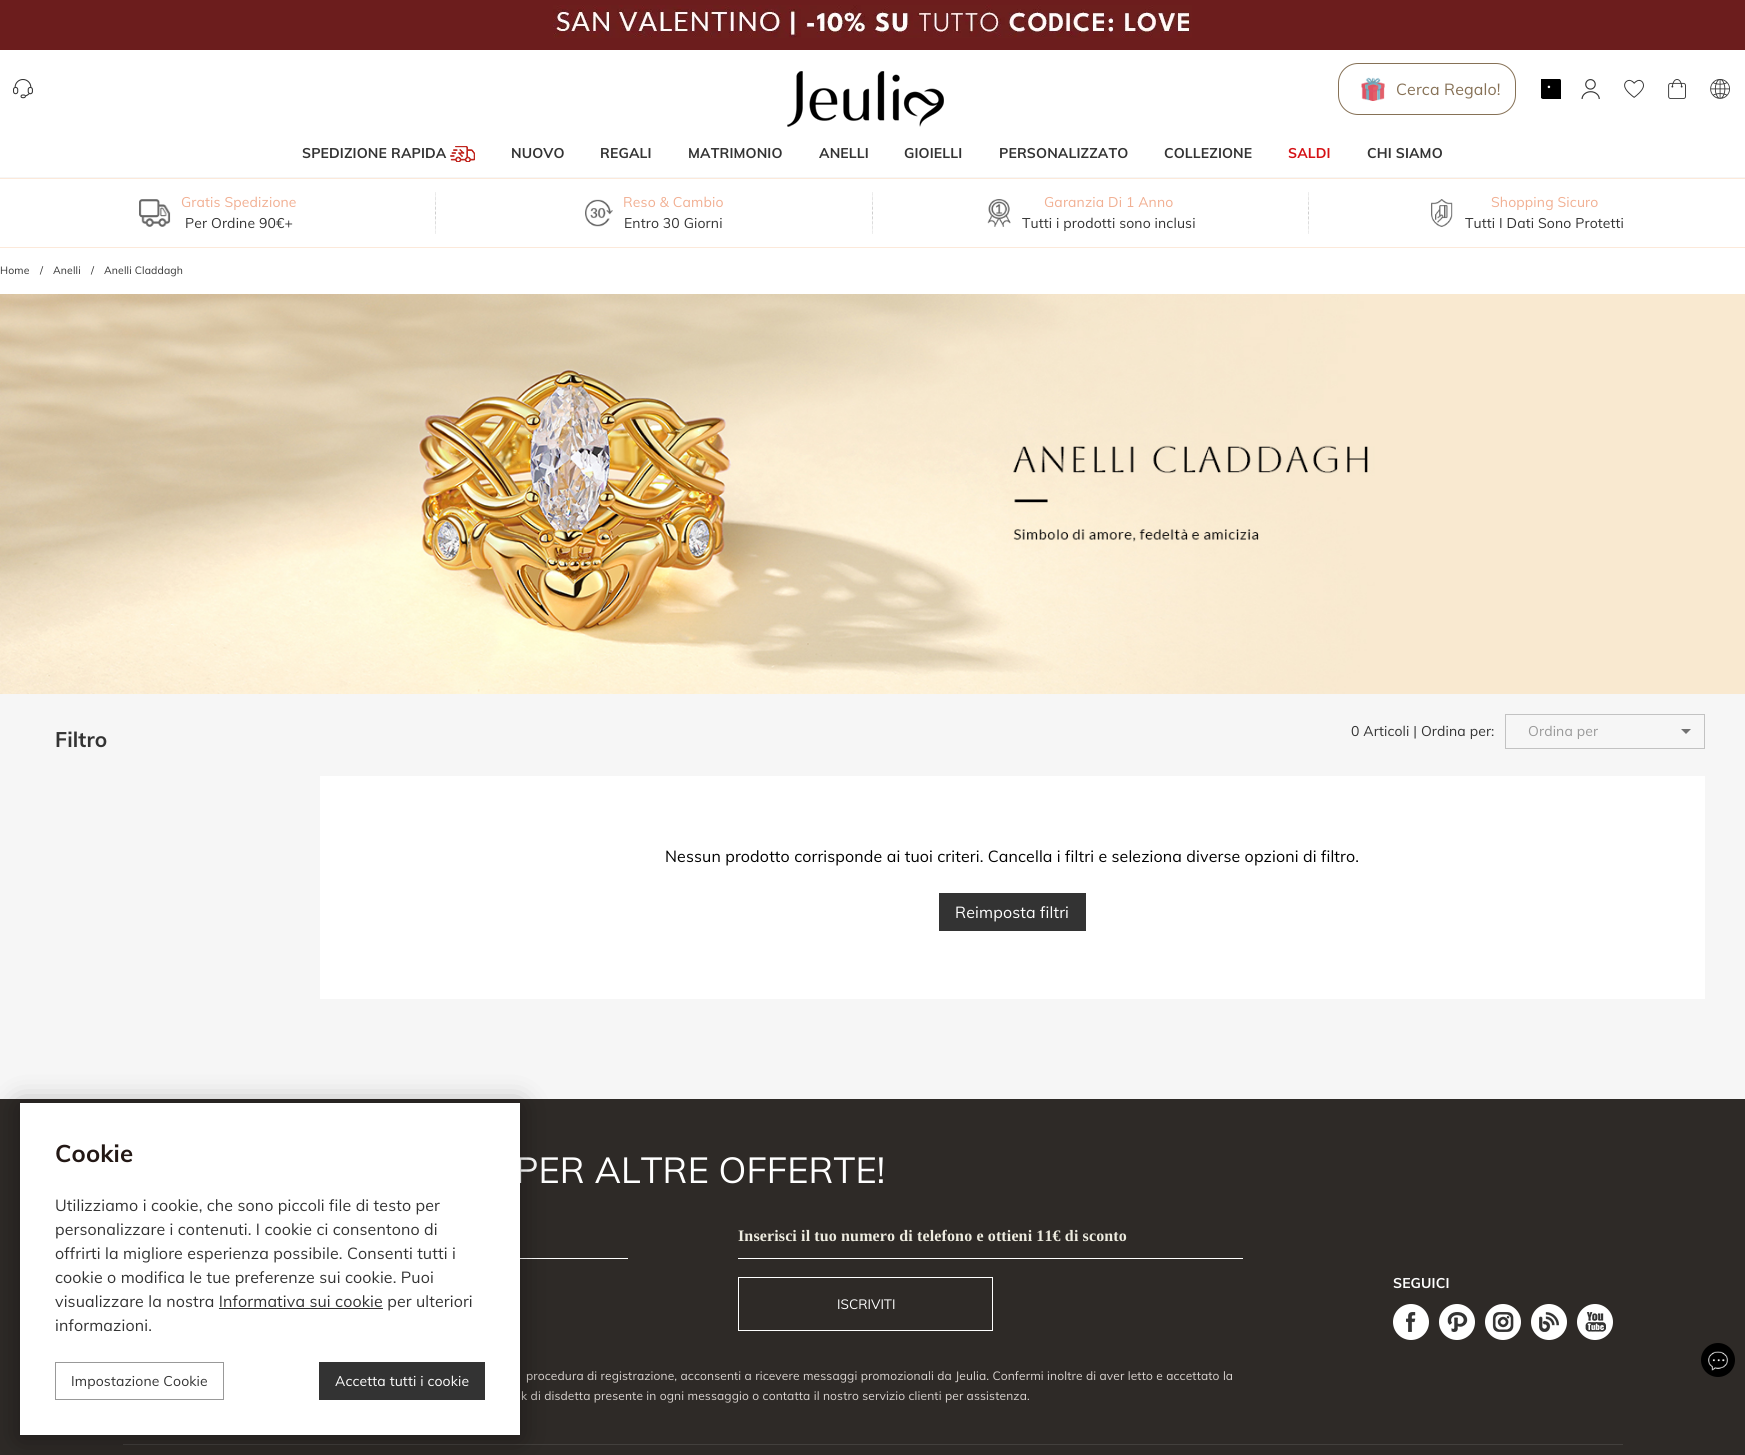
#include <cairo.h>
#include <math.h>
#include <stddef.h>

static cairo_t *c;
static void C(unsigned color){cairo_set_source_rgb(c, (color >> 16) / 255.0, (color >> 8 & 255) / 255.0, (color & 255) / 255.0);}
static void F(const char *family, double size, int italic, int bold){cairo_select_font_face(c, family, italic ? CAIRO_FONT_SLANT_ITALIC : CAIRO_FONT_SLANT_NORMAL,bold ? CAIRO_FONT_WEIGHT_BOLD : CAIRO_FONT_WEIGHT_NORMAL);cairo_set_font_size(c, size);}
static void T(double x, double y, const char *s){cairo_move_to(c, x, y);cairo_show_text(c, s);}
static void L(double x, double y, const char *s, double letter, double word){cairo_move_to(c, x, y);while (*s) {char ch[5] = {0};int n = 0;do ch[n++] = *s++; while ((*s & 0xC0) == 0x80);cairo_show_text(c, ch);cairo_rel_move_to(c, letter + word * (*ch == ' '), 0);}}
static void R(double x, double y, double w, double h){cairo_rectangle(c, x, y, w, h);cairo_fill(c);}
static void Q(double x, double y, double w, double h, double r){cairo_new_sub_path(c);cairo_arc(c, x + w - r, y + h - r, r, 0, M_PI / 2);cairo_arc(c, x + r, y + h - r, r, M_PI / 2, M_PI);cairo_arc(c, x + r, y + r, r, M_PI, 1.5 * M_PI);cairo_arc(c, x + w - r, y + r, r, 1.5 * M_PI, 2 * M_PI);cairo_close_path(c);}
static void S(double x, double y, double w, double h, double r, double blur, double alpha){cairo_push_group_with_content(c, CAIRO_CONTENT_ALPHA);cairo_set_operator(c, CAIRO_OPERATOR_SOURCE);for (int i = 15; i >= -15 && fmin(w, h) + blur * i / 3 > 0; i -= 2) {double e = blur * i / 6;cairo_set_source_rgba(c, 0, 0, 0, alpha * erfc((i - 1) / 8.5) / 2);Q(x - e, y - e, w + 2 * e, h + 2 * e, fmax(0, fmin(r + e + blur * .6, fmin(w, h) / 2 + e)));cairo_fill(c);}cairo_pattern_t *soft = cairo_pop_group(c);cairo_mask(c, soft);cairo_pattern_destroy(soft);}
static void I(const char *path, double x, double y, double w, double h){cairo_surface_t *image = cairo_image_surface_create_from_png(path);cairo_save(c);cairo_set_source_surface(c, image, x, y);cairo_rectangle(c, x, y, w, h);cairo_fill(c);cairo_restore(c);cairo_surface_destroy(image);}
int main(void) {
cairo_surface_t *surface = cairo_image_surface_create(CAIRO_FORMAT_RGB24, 1745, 1455);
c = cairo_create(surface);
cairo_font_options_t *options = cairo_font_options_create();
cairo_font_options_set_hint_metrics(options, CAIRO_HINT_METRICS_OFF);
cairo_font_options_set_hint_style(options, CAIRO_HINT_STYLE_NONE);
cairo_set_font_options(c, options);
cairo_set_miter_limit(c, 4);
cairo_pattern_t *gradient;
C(0xffffff);
cairo_paint(c);
C(0x6c1d1d);
R(0,0,1745,50);
I("1.png",553,5,639,33);
I("2.png",13,79,20,20);
I("3.png",787,71,157,56);
Q(1338.5,63.5,177,51,19.5);
C(0x867156);
cairo_set_line_width(c,1);
cairo_stroke(c);
I("4.png",1361,77,24,24);
F("Muli",16,0,0);
L(1396,95,"Cerca Regalo!",.13,0);
I("5.png",1541,79,20,20);
I("6.png",1581,79,19,20);
I("7.png",1624,79,20,19);
I("8.png",1668,79,18,20);
I("9.png",1710,79,20,20);
F("Muli",14,0,1);
C(0x333333);
L(302,158,"SPEDIZIONE RAPIDA",.13,0);
I("10.png",450,146,25,16);
L(511,158,"NUOVO",.13,0);
L(600,158,"REGALI",.13,0);
L(688,158,"MATRIMONIO",.13,0);
L(819,158,"ANELLI",.13,0);
L(904,158,"GIOIELLI",.13,0);
L(999,158,"PERSONALIZZATO",.13,0);
L(1164,158,"COLLEZIONE",.13,0);
C(0xd51115);
L(1288,158,"SALDI",.13,0);
C(0x333333);
L(1367,158,"CHI SIAMO",.13,0);
C(0xf6f6f6);
R(0,177,1745,1);
C(0xfce9da);
R(0,178,1745,1);
R(0,247,1745,1);
cairo_new_path(c);
cairo_move_to(c,435.5,192);
cairo_line_to(c,435.5,234);
C(0xcccccc);
cairo_set_dash(c,(double[]){3,1.88},2,0);
cairo_stroke(c);
I("11.png",139,199,32,28);
F("Muli",14,0,0);
C(0xf1af92);
L(181,207,"Gratis Spedizione",.13,0);
C(0x333333);
L(185,228,"Per Ordine 90€+",.13,0);
gradient = cairo_pattern_create_linear(436,192,436,234);
cairo_pattern_add_color_stop_rgba(gradient,0,0.937,0.937,0.937,1);
cairo_pattern_add_color_stop_rgba(gradient,.5,0.937,0.937,0.937,0);
cairo_pattern_add_color_stop_rgba(gradient,1,0.937,0.937,0.937,1);
cairo_set_source(c,gradient);
cairo_pattern_destroy(gradient);
R(435,192,1,42);
cairo_new_path(c);
cairo_move_to(c,872.5,192);
cairo_line_to(c,872.5,234);
C(0xcccccc);
cairo_stroke(c);
I("12.png",585,199,28,28);
C(0xf1af92);
L(623,207,"Reso & Cambio",.13,0);
C(0x333333);
L(624,228,"Entro 30 Giorni",.13,0);
gradient = cairo_pattern_create_linear(873,192,873,234);
cairo_pattern_add_color_stop_rgba(gradient,0,0.937,0.937,0.937,1);
cairo_pattern_add_color_stop_rgba(gradient,.5,0.937,0.937,0.937,0);
cairo_pattern_add_color_stop_rgba(gradient,1,0.937,0.937,0.937,1);
cairo_set_source(c,gradient);
cairo_pattern_destroy(gradient);
R(872,192,1,42);
cairo_new_path(c);
cairo_move_to(c,1308.5,192);
cairo_line_to(c,1308.5,234);
C(0xcccccc);
cairo_stroke(c);
I("13.png",987,199,24,28);
C(0xf1af92);
L(1044,207,"Garanzia Di 1 Anno",.13,0);
C(0x333333);
L(1022,228,"Tutti i prodotti sono inclusi",.13,0);
gradient = cairo_pattern_create_linear(1309,192,1309,234);
cairo_pattern_add_color_stop_rgba(gradient,0,0.937,0.937,0.937,1);
cairo_pattern_add_color_stop_rgba(gradient,.5,0.937,0.937,0.937,0);
cairo_pattern_add_color_stop_rgba(gradient,1,0.937,0.937,0.937,1);
cairo_set_source(c,gradient);
cairo_pattern_destroy(gradient);
R(1308,192,1,42);
I("14.png",1431,199,22,28);
C(0xf1af92);
L(1491,207,"Shopping Sicuro",.13,0);
C(0x333333);
L(1465,228,"Tutti I Dati Sono Protetti",.13,0);
F("Muli",10.5,0,0);
L(0,274,"Home",.13,0);
L(40,274,"/",.13,0);
L(53,274,"Anelli",.13,0);
L(91,274,"/",.13,0);
L(104,274,"Anelli Claddagh",.13,0);
I("15.png",0,294,1745,400);
C(0xf6f6f6);
R(0,694,1745,405);
F("Muli",21,0,1);
C(0x333333);
L(55,747,"Filtro",.13,0);
F("Muli",14,0,0);
L(1351,736,"0 Articoli | Ordina per:",.13,0);
cairo_rectangle(c,1505.5,714.5,199,34);
C(0xc2c2c2);
cairo_set_dash(c,NULL,0,0);
cairo_stroke(c);
C(0x717171);
cairo_new_path(c);
cairo_move_to(c,1681,729);
cairo_line_to(c,1686,734);
cairo_line_to(c,1691,729);
cairo_close_path(c);
cairo_fill(c);
C(0x999999);
L(1528,736,"Ordina per",.13,0);
C(0xffffff);
R(320,776,1385,223);
F("Muli",16,0,0);
C(0x000000);
L(665,862,"Nessun prodotto corrisponde ai tuoi criteri. Cancella i filtri e seleziona diverse opzioni di filtro.",.13,0);
C(0x333333);
R(939,893,147,38);
C(0xffffff);
L(955,918,"Reimposta filtri",.13,0);
C(0x2e2a27);
R(0,1099,1745,356);
F("Muli",36,0,0);
C(0xffffff);
L(515,1183,"PER ALTRE OFFERTE!",.13,0);
C(0x43403d);
R(123,1444,1500,1);
C(0xffffff);
R(520,1258,108,1);
F("Liberation Serif",16,0,1);
C(0xedebdf);
L(738,1241,"Inserisci il tuo numero di telefono e ottieni 11€ di sconto",.13,0);
C(0xffffff);
R(738,1258,505,1);
cairo_rectangle(c,738.5,1277.5,254,53);
cairo_stroke(c);
F("Muli",13.5,0,0);
T(837,1309,"ISCRIVITI");
F("Muli",12,0,0);
C(0xdad4d0);
L(526,1380,"procedura di registrazione, acconsenti a ricevere messaggi promozionali da Jeulia. Confermi inoltre di aver letto e accettato la",.13,0);
L(521,1400,"k di disdetta presente in ogni messaggio o contatta il nostro servizio clienti per assistenza.",.13,0);
F("Muli",14,0,1);
C(0xffffff);
L(1393,1288,"SEGUICI",.13,0);
I("16.png",1393,1304,36,36);
I("17.png",1439,1304,36,36);
I("18.png",1485,1304,36,36);
I("19.png",1531,1304,36,36);
I("20.png",1577,1304,36,36);
C(0x000000);
S(20,1106,500,332,0,14.5,.36);
C(0xffffff);
R(20,1103,500,332);
F("Muli",24,0,1);
C(0x231815);
L(55,1162,"Cookie",.13,0);
F("Muli",16,0,0);
C(0x333333);
L(55,1211,"Utilizziamo i cookie, che sono piccoli file di testo per",.13,0);
L(55,1235,"personalizzare i contenuti. I cookie ci consentono di",.13,0);
L(55,1259,"offrirti la migliore esperienza possibile. Consenti tutti i",.13,0);
L(55,1283,"cookie o modifica le tue preferenze sui cookie. Puoi",.13,0);
L(55,1307,"visualizzare la nostra Informativa sui cookie per ulteriori",.13,0);
R(219,1308,164,1);
L(55,1331,"informazioni.",.13,0);
cairo_rectangle(c,55.5,1362.5,168,37);
C(0x999999);
cairo_stroke(c);
F("Muli",14,0,0);
C(0x333333);
L(71,1386,"Impostazione Cookie",.13,0);
R(319,1362,166,38);
C(0xffffff);
L(335,1386,"Accetta tutti i cookie",.13,0);
C(0x000000);
cairo_new_path(c);
cairo_arc(c,1718,1360,17,0,2 * M_PI);
cairo_fill(c);
I("21.png",1708,1351,20,20);
cairo_surface_write_to_png(surface, "o.png");
cairo_font_options_destroy(options);
cairo_destroy(c);
cairo_surface_destroy(surface);
return 0;
}
